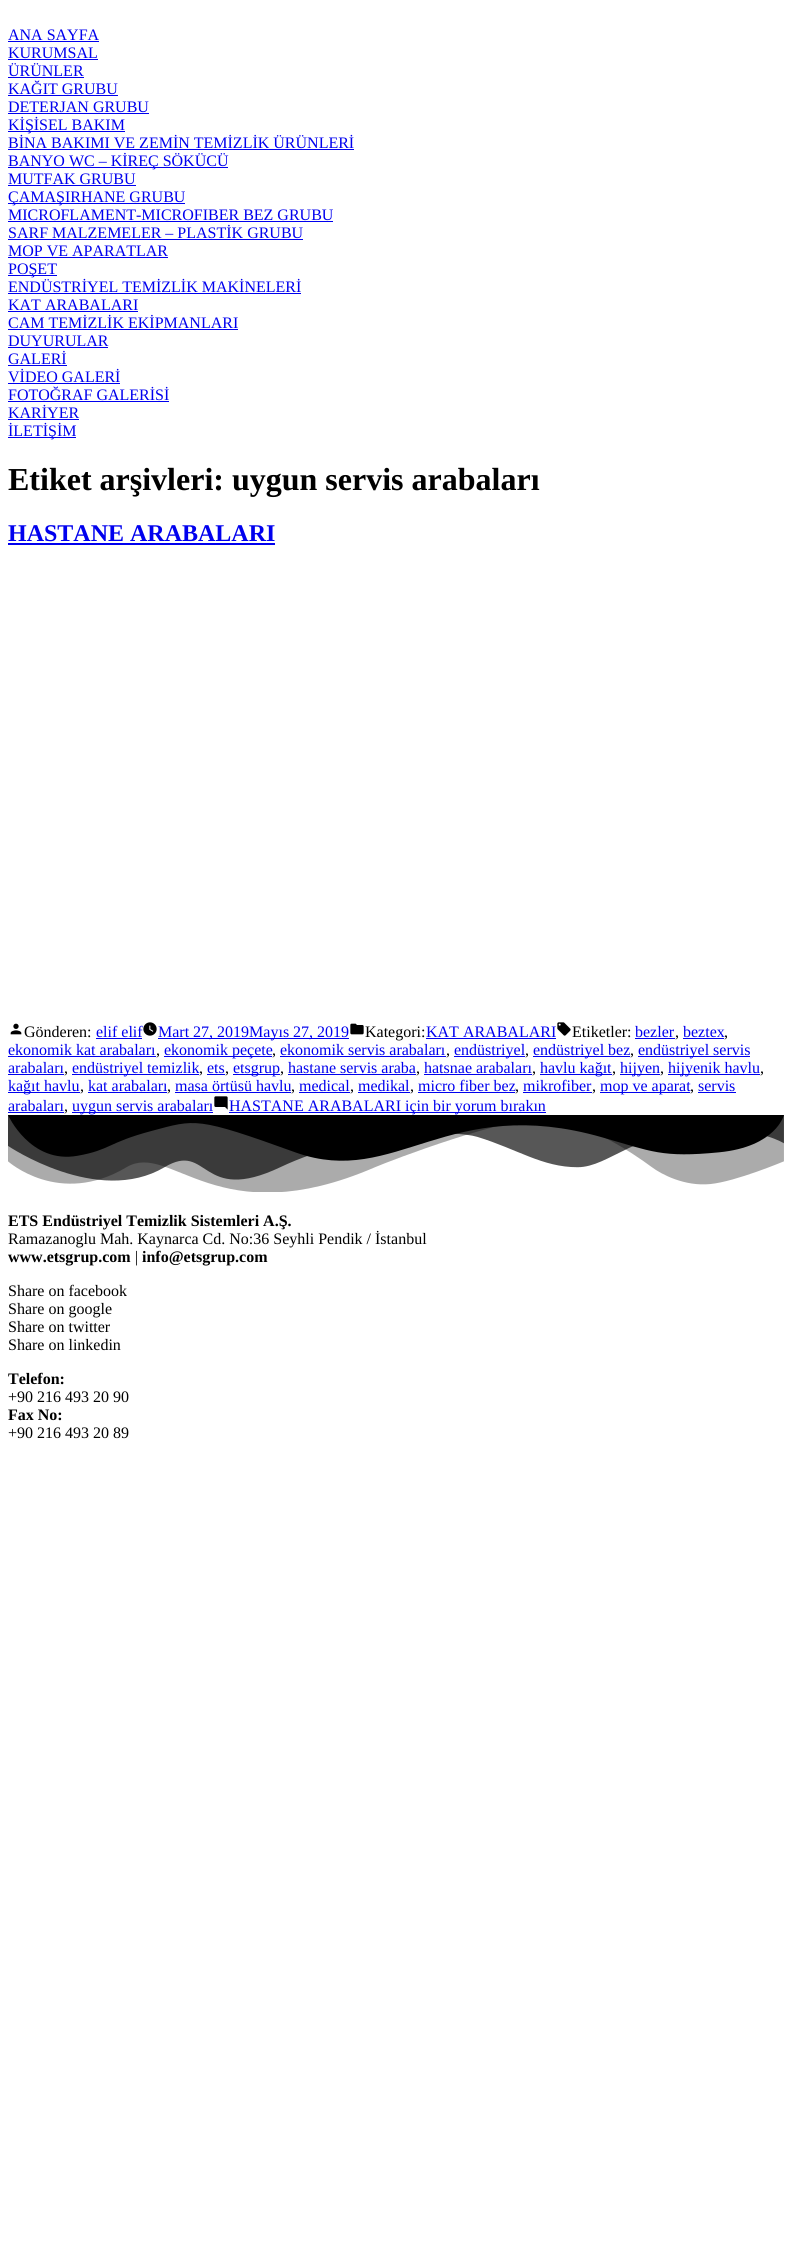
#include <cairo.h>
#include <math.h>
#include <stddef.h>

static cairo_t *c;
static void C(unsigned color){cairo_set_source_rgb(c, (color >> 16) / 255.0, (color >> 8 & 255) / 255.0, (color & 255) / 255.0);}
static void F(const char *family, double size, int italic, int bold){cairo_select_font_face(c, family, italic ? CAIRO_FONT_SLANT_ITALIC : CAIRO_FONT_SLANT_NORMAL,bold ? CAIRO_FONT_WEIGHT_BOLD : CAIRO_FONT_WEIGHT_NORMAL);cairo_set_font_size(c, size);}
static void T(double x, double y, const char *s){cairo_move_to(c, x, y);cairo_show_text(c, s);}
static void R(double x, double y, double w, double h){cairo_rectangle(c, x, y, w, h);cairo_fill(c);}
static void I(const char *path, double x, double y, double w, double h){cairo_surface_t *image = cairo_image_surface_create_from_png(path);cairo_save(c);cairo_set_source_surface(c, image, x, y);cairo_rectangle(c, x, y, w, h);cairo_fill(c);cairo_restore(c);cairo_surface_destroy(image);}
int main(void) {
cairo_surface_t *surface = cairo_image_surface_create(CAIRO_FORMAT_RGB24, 792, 2246);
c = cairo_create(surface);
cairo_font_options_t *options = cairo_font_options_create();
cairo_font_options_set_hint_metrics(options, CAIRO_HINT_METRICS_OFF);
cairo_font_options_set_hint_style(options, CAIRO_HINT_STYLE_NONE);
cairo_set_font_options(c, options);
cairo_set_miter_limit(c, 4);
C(0xffffff);
cairo_paint(c);
F("Liberation Serif",16,0,0);
C(0x0000ee);
T(8,40,"ANA SAYFA");
R(8,41,91,1);
T(8,58,"KURUMSAL");
R(8,59,90,1);
T(8,76,"ÜRÜNLER");
R(8,77,76,1);
T(8,94,"KAĞIT GRUBU");
R(8,95,110,1);
T(8,112,"DETERJAN GRUBU");
R(8,113,141,1);
R(8,131,117,1);
T(8,130,"KİŞİSEL BAKIM");
T(8,148,"BİNA BAKIMI VE ZEMİN TEMİZLİK ÜRÜNLERİ");
R(8,149,346,1);
R(8,167,220,1);
T(8,166,"BANYO WC – KİREÇ SÖKÜCÜ");
T(8,184,"MUTFAK GRUBU");
R(8,185,128,1);
R(8,203,177,1);
T(8,202,"ÇAMAŞIRHANE GRUBU");
T(8,220,"MICROFLAMENT-MICROFIBER BEZ GRUBU");
R(8,221,325,1);
T(8,238,"SARF MALZEMELER – PLASTİK GRUBU");
R(8,239,295,1);
T(8,256,"MOP VE APARATLAR");
R(8,257,160,1);
R(8,275,49,1);
T(8,274,"POŞET");
T(8,292,"ENDÜSTRİYEL TEMİZLİK MAKİNELERİ");
R(8,293,293,1);
T(8,310,"KAT ARABALARI");
R(8,311,130,1);
T(8,328,"CAM TEMİZLİK EKİPMANLARI");
R(8,329,230,1);
T(8,346,"DUYURULAR");
R(8,347,100,1);
T(8,364,"GALERİ");
R(8,365,59,1);
T(8,382,"VİDEO GALERİ");
R(8,383,112,1);
T(8,400,"FOTOĞRAF GALERİSİ");
R(8,401,161,1);
T(8,418,"KARİYER");
R(8,419,71,1);
R(8,437,68,1);
T(8,436,"İLETİŞİM");
F("Liberation Serif",32,0,1);
C(0x000000);
T(8,490,"Etiket arşivleri: uygun servis arabaları");
F("Liberation Serif",24,0,1);
C(0x0000ee);
T(8,541,"HASTANE ARABALARI");
R(8,543,267,2);
I("1.png",10,1023,12,12);
F("Liberation Serif",16,0,0);
C(0x000000);
T(24,1037,"Gönderen:");
C(0x0000ee);
T(96,1037,"elif elif");
R(96,1038,46,1);
I("2.png",143,1022,14,14);
R(158,1038,191,1);
T(158,1037,"Mart 27, 2019Mayıs 27, 2019");
I("3.png",350,1023,14,12);
C(0x000000);
T(365,1037,"Kategori:");
C(0x0000ee);
R(426,1038,130,1);
T(426,1037,"KAT ARABALARI");
I("4.png",557,1022,14,14);
C(0x000000);
T(572,1037,"Etiketler:");
C(0x0000ee);
T(635,1037,"bezler");
C(0x000000);
T(675,1037,",");
C(0x0000ee);
R(635,1038,40,1);
T(683,1037,"beztex");
C(0x000000);
T(724,1037,",");
C(0x0000ee);
R(683,1038,41,1);
T(8,1055,"ekonomik kat arabaları");
C(0x000000);
T(156,1055,",");
C(0x0000ee);
R(8,1056,148,1);
R(164,1056,108,1);
T(164,1055,"ekonomik peçete");
C(0x000000);
T(272,1055,",");
C(0x0000ee);
T(280,1055,"ekonomik servis arabaları");
C(0x000000);
T(446,1055,",");
C(0x0000ee);
R(280,1056,166,1);
R(454,1056,71,1);
T(454,1055,"endüstriyel");
C(0x000000);
T(525,1055,",");
C(0x0000ee);
R(533,1056,97,1);
T(533,1055,"endüstriyel bez");
C(0x000000);
T(630,1055,",");
C(0x0000ee);
R(638,1056,112,1);
T(638,1055,"endüstriyel servis");
T(8,1073,"arabaları");
C(0x000000);
T(64,1073,",");
C(0x0000ee);
R(8,1074,56,1);
R(72,1074,127,1);
T(72,1073,"endüstriyel temizlik");
C(0x000000);
T(199,1073,",");
C(0x0000ee);
T(207,1073,"ets");
C(0x000000);
T(225,1073,",");
C(0x0000ee);
R(207,1074,18,1);
R(233,1074,47,1);
T(233,1073,"etsgrup");
C(0x000000);
T(280,1073,",");
C(0x0000ee);
T(288,1073,"hastane servis araba");
C(0x000000);
T(416,1073,",");
C(0x0000ee);
R(288,1074,128,1);
T(424,1073,"hatsnae arabaları");
C(0x000000);
T(532,1073,",");
C(0x0000ee);
R(424,1074,108,1);
R(540,1074,72,1);
T(540,1073,"havlu kağıt");
C(0x000000);
T(612,1073,",");
C(0x0000ee);
R(620,1074,40,1);
T(620,1073,"hijyen");
C(0x000000);
T(660,1073,",");
C(0x0000ee);
R(668,1074,92,1);
T(668,1073,"hijyenik havlu");
C(0x000000);
T(760,1073,",");
C(0x0000ee);
R(8,1092,72,1);
T(8,1091,"kağıt havlu");
C(0x000000);
T(80,1091,",");
C(0x0000ee);
T(88,1091,"kat arabaları");
C(0x000000);
T(167,1091,",");
C(0x0000ee);
R(88,1092,79,1);
T(175,1091,"masa örtüsü havlu");
C(0x000000);
T(291,1091,",");
C(0x0000ee);
R(175,1092,116,1);
T(299,1091,"medical");
C(0x000000);
T(350,1091,",");
C(0x0000ee);
R(299,1092,51,1);
T(358,1091,"medikal");
C(0x000000);
T(410,1091,",");
C(0x0000ee);
R(358,1092,52,1);
T(418,1091,"micro fiber bez");
C(0x000000);
T(515,1091,",");
C(0x0000ee);
R(418,1092,97,1);
T(523,1091,"mikrofiber");
C(0x000000);
T(592,1091,",");
C(0x0000ee);
R(523,1092,69,1);
R(600,1092,90,1);
T(600,1091,"mop ve aparat");
C(0x000000);
T(690,1091,",");
C(0x0000ee);
R(698,1092,38,1);
T(698,1091,"servis");
T(8,1111,"arabaları");
C(0x000000);
T(64,1111,",");
C(0x0000ee);
R(8,1112,56,1);
R(72,1112,141,1);
T(72,1111,"uygun servis arabaları");
I("5.png",214,1096,14,14);
R(229,1112,317,1);
T(229,1111,"HASTANE ARABALARI için bir yorum bırakın");
I("6.png",8,1115,776,77);
F("Liberation Serif",16,0,1);
C(0x000000);
T(8,1226,"ETS Endüstriyel Temizlik Sistemleri A.Ş.");
F("Liberation Serif",16,0,0);
T(8,1244,"Ramazanoglu Mah. Kaynarca Cd. No:36 Seyhli Pendik / İstanbul");
F("Liberation Serif",16,0,1);
T(8,1262,"www.etsgrup.com");
F("Liberation Serif",16,0,0);
T(135,1262,"|");
F("Liberation Serif",16,0,1);
T(142,1262,"info@etsgrup.com");
F("Liberation Serif",16,0,0);
T(8,1296,"Share on facebook");
T(8,1314,"Share on google");
T(8,1332,"Share on twitter");
T(8,1350,"Share on linkedin");
F("Liberation Serif",16,0,1);
T(8,1384,"Telefon:");
F("Liberation Serif",16,0,0);
T(8,1402,"+90 216 493 20 90");
F("Liberation Serif",16,0,1);
T(8,1420,"Fax No:");
F("Liberation Serif",16,0,0);
T(8,1438,"+90 216 493 20 89");
cairo_surface_write_to_png(surface, "o.png");
cairo_font_options_destroy(options);
cairo_destroy(c);
cairo_surface_destroy(surface);
return 0;
}
